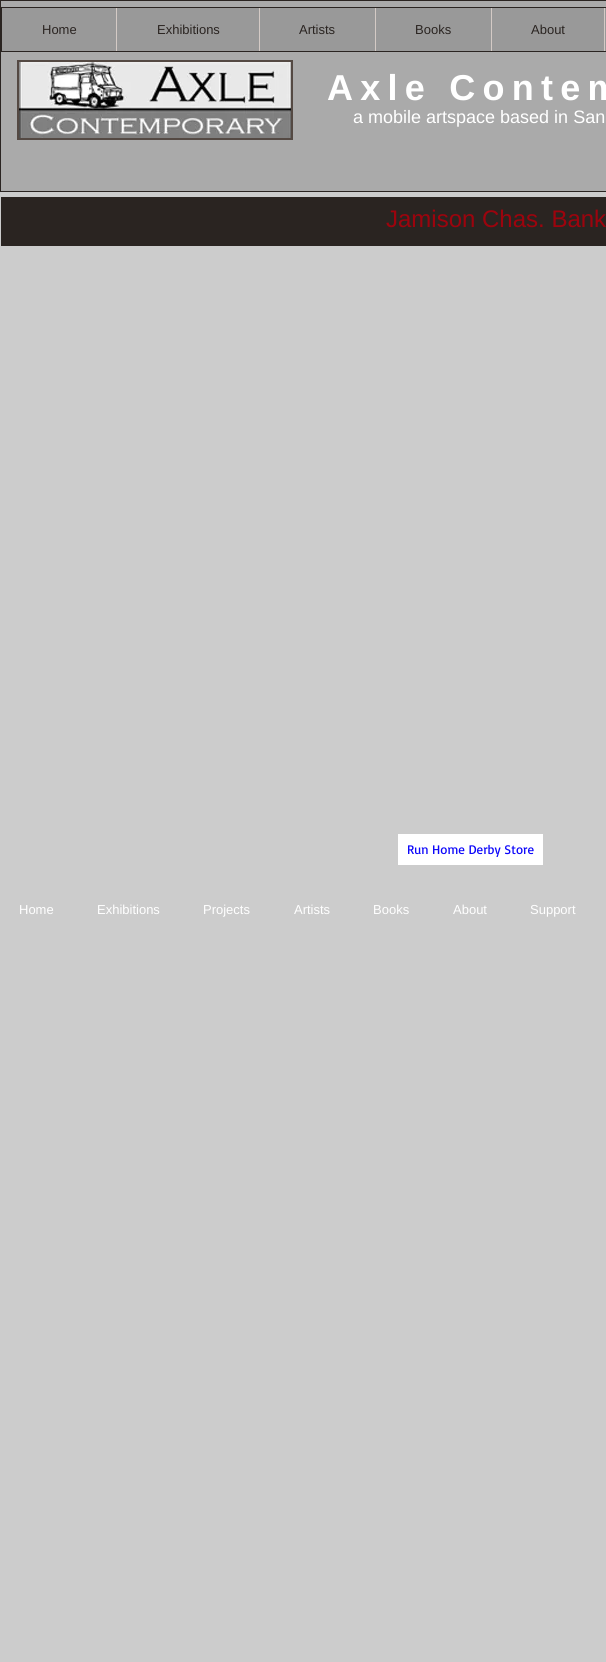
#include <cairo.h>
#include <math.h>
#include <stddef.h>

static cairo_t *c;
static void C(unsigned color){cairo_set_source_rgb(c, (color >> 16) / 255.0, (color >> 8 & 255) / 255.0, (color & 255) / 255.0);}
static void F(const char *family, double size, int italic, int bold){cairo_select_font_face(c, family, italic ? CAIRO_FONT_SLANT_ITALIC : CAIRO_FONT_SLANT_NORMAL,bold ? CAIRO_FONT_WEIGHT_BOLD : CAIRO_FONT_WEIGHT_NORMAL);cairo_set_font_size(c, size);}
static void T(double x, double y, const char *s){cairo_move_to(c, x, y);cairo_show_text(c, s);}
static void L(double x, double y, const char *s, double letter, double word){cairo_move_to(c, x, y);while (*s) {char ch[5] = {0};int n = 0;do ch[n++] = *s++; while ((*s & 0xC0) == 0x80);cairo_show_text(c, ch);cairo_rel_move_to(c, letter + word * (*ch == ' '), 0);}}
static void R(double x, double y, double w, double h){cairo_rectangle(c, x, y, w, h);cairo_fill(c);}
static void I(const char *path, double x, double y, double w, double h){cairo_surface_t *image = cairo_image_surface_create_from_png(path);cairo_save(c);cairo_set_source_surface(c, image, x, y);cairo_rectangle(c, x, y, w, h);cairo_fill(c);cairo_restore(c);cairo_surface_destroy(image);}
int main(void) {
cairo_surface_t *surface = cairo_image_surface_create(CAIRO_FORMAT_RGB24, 606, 1662);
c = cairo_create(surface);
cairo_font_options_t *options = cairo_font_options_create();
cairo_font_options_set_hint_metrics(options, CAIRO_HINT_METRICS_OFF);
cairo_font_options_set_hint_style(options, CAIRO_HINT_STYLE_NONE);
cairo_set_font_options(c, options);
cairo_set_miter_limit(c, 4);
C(0xcccccc);
cairo_paint(c);
C(0xaaaaaa);
cairo_rectangle(c,.5,.5,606,191);
cairo_fill_preserve(c);
C(0x2a2421);
cairo_set_line_width(c,1);
cairo_stroke(c);
C(0x999999);
cairo_rectangle(c,1.5,7.5,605,44);
cairo_fill_preserve(c);
C(0x2a2421);
cairo_stroke(c);
F("Liberation Sans",13,0,0);
T(42,34,"Home");
C(0xd4cac5);
R(116,8,1,43);
C(0x2a2421);
T(157,34,"Exhibitions");
C(0xd4cac5);
R(259,8,1,43);
C(0x2a2421);
T(299,34,"Artists");
C(0xd4cac5);
R(375,8,1,43);
C(0x2a2421);
T(415,34,"Books");
C(0xd4cac5);
R(491,8,1,43);
C(0x2a2421);
T(531,34,"About");
C(0xd4cac5);
R(604,8,1,43);
C(0x544943);
R(17,60,276,80);
I("1.png",19,62,272,76);
F("Liberation Sans",36,0,1);
C(0xffffff);
L(327,100,"Axle Contem",7.25,0);
F("Liberation Sans",18,0,0);
T(353,123,"a mobile artspace based in San");
C(0x2a2421);
R(1,197,605,49);
F("Liberation Sans",24,0,0);
C(0x9d030d);
T(386,227,"Jamison Chas. Bank");
C(0xffffff);
R(398,834,145,31);
F("Basic",13,0,0);
C(0x0d07fa);
T(407,854,"Run Home Derby Store");
F("Liberation Sans",13,0,0);
C(0xffffff);
T(19,914,"Home");
T(97,914,"Exhibitions");
T(203,914,"Projects");
T(294,914,"Artists");
T(373,914,"Books");
T(453,914,"About");
T(530,914,"Support");
cairo_surface_write_to_png(surface, "o.png");
cairo_font_options_destroy(options);
cairo_destroy(c);
cairo_surface_destroy(surface);
return 0;
}
